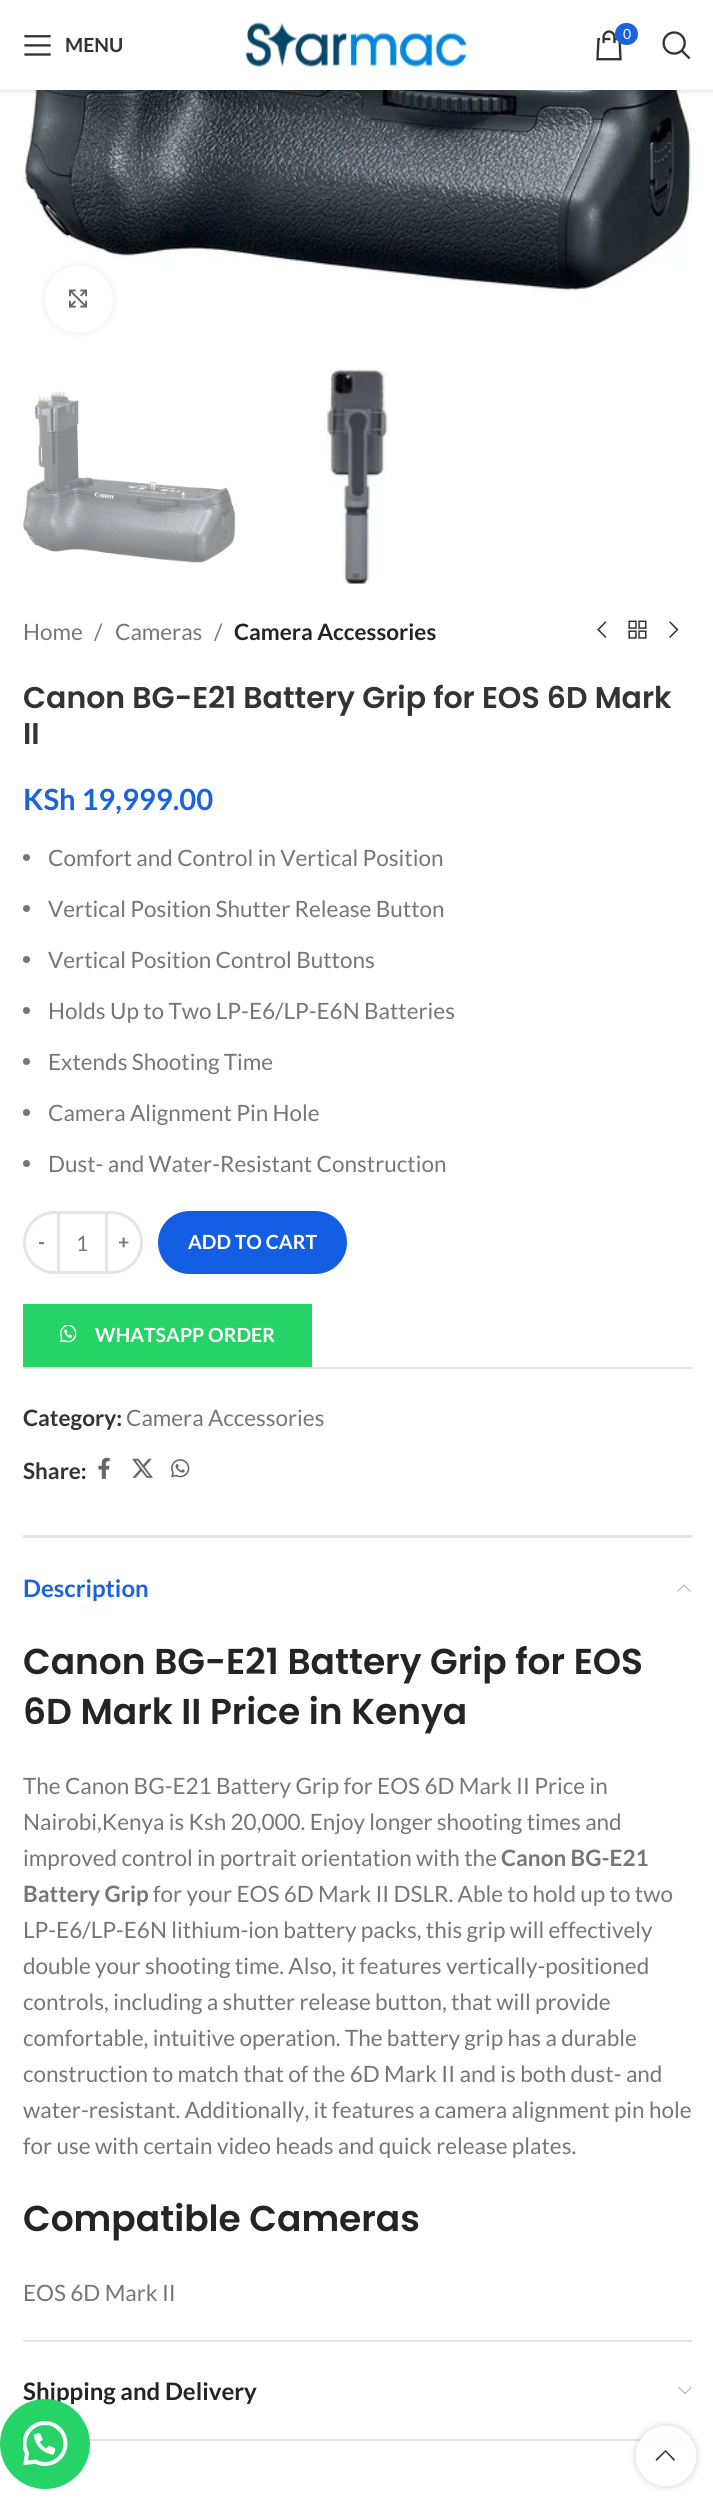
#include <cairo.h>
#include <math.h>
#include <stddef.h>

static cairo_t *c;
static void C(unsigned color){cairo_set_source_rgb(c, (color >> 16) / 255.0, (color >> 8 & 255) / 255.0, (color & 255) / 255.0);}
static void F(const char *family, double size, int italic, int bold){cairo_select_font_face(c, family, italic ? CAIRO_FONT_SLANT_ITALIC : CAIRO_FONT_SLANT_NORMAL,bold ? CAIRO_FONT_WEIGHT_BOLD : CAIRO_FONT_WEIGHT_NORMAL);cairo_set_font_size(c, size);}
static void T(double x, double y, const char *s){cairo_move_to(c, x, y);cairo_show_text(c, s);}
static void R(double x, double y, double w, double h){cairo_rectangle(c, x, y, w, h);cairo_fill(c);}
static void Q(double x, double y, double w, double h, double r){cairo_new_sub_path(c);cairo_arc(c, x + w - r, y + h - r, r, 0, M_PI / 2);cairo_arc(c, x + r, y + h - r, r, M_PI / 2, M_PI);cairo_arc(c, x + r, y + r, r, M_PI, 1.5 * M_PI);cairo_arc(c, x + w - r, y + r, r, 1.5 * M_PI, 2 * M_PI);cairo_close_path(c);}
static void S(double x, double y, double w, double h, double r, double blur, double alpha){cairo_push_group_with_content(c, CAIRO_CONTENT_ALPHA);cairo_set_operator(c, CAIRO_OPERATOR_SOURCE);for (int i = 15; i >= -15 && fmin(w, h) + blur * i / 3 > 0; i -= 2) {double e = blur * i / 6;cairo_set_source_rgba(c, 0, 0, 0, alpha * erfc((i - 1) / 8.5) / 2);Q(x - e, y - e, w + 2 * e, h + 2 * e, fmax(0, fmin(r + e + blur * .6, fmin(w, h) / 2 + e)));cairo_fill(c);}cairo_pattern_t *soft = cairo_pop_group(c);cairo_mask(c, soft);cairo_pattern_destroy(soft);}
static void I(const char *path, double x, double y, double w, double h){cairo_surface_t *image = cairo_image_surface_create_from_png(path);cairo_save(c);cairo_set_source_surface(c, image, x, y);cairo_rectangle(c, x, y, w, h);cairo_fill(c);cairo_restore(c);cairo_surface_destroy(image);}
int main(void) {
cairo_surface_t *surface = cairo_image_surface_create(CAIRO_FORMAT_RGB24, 713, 2503);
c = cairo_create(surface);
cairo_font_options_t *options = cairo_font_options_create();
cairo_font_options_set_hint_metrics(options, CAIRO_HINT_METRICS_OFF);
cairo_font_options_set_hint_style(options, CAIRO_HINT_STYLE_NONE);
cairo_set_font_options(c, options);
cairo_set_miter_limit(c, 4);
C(0xffffff);
cairo_paint(c);
I("5.png",23,90,669,202);
C(0x000000);
S(0,2,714,90,0,2,.1);
C(0xffffff);
R(0,0,713,90);
I("1.png",245,22,223,47);
I("2.png",596,30,26,31);
C(0x1b63de);
Q(615,23,23,22,11);
cairo_fill(c);
F("Lato",14,0,0);
C(0xffffff);
T(623,39,"0");
I("3.png",662,31,29,29);
I("4.png",24,35,27,21);
F("Lato",19.5,0,1);
C(0x333333);
T(65,52,"MENU");
C(0x000000);
S(45,266,68,67,33.5,4,.08);
C(0xffffff);
Q(45,266,68,67,33.5);
cairo_fill(c);
I("6.png",69,289,18,19);
I("7.png",23,391,213,172);
I("8.png",326,370,62,214);
F("Lato",22.5,0,0);
C(0x767676);
T(23,640,"Home");
T(94,640,"/");
T(115,640,"Cameras");
T(214,640,"/");
F("Lato",22.5,0,1);
C(0x242424);
T(234,640,"Camera Accessories");
I("9.png",597,621,10,17);
I("10.png",628,620,19,19);
I("11.png",669,621,10,17);
F("Poppins SemiBold",30,0,0);
C(0x333333);
T(23,708,"Canon BG-E21 Battery Grip for EOS 6D Mark");
T(23,744,"II");
F("Lato",29.25,0,1);
C(0x1b63de);
T(23,810,"KSh 19,999.00");
C(0x767676);
cairo_new_path(c);
cairo_arc(c,26.5,857.5,3.5,0,2 * M_PI);
cairo_fill(c);
F("Lato",22.5,0,0);
T(48,866,"Comfort and Control in Vertical Position");
cairo_new_path(c);
cairo_arc(c,26.5,908.5,3.5,0,2 * M_PI);
cairo_fill(c);
T(48,917,"Vertical Position Shutter Release Button");
cairo_new_path(c);
cairo_arc(c,26.5,959.5,3.5,0,2 * M_PI);
cairo_fill(c);
T(48,968,"Vertical Position Control Buttons");
cairo_new_path(c);
cairo_arc(c,26.5,1010.5,3.5,0,2 * M_PI);
cairo_fill(c);
T(48,1019,"Holds Up to Two LP-E6/LP-E6N Batteries");
cairo_new_path(c);
cairo_arc(c,26.5,1061.5,3.5,0,2 * M_PI);
cairo_fill(c);
T(48,1070,"Extends Shooting Time");
cairo_new_path(c);
cairo_arc(c,26.5,1112.5,3.5,0,2 * M_PI);
cairo_fill(c);
T(48,1121,"Camera Alignment Pin Hole");
cairo_new_path(c);
cairo_arc(c,26.5,1163.5,3.5,0,2 * M_PI);
cairo_fill(c);
T(48,1172,"Dust- and Water-Resistant Construction");
cairo_new_path(c);
cairo_move_to(c,54.5,1212.5);
cairo_line_to(c,58.5,1212.5);
cairo_line_to(c,58.5,1272.5);
cairo_line_to(c,54.5,1272.5);
cairo_curve_to(c,38,1272.5,24.5,1259,24.5,1242.5);
cairo_curve_to(c,24.5,1226,38,1212.5,54.5,1212.5);
cairo_close_path(c);
C(0xe6e6e6);
cairo_set_line_width(c,3);
cairo_stroke(c);
F("Lato",19.5,0,1);
C(0x767676);
T(38,1249,"-");
C(0xe6e6e6);
R(60,1211,45,3);
R(60,1271,45,3);
F("Lato",21,0,0);
C(0x767676);
T(76,1251,"1");
cairo_new_path(c);
cairo_move_to(c,106.5,1212.5);
cairo_line_to(c,111.5,1212.5);
cairo_curve_to(c,128,1212.5,141.5,1226,141.5,1242.5);
cairo_curve_to(c,141.5,1259,128,1272.5,111.5,1272.5);
cairo_line_to(c,106.5,1272.5);
cairo_close_path(c);
C(0xe6e6e6);
cairo_stroke(c);
F("Lato",19.5,0,1);
C(0x767676);
T(118,1249,"+");
C(0x145ee4);
Q(158,1211,189,63,31.5);
cairo_fill(c);
C(0xffffff);
T(188,1249,"ADD TO CART");
C(0x25d366);
R(23,1304,289,63);
I("12.png",60,1325,17,18);
C(0xffffff);
T(95,1342,"WHATSAPP ORDER");
C(0xe4e4e4);
R(23,1367,669,2);
F("Lato",22.5,0,1);
C(0x333333);
T(23,1426,"Category:");
F("Lato",22.5,0,0);
C(0x767676);
T(126,1426,"Camera Accessories");
F("Lato",22.5,0,1);
C(0x333333);
T(23,1479,"Share:");
I("13.png",98,1457,12,22);
I("14.png",132,1458,21,20);
I("15.png",171,1459,19,19);
C(0xe4e4e4);
R(23,1535,669,3);
R(23,2340,669,2);
F("Lato",24,0,1);
C(0x1b63de);
T(23,1597,"Description");
I("16.png",677,1584,14,8);
F("Poppins SemiBold",36,0,0);
C(0x242424);
T(23,1674,"Canon BG-E21 Battery Grip for EOS");
T(23,1724,"6D Mark II Price in Kenya");
F("Lato",22.5,0,0);
C(0x767676);
T(23,1794,"The Canon BG-E21 Battery Grip for EOS 6D Mark II Price in");
T(23,1830,"Nairobi,Kenya is Ksh 20,000. Enjoy longer shooting times and");
T(23,1866,"improved control in portrait orientation with the");
F("Lato",22.5,0,1);
T(501,1866,"Canon BG-E21");
T(23,1902,"Battery Grip");
F("Lato",22.5,0,0);
T(153,1902,"for your EOS 6D Mark II DSLR. Able to hold up to two");
T(23,1938,"LP-E6/LP-E6N lithium-ion battery packs, this grip will effectively");
T(23,1974,"double your shooting time. Also, it features vertically-positioned");
T(23,2010,"controls, including a shutter release button, that will provide");
T(23,2046,"comfortable, intuitive operation. The battery grip has a durable");
T(23,2082,"construction to match that of the 6D Mark II and is both dust- and");
T(23,2118,"water-resistant. Additionally, it features a camera alignment pin hole");
T(23,2154,"for use with certain video heads and quick release plates.");
F("Poppins SemiBold",36,0,0);
C(0x242424);
T(23,2231,"Compatible Cameras");
F("Lato",22.5,0,0);
C(0x767676);
T(23,2301,"EOS 6D Mark II");
C(0xe4e4e4);
R(89,2439,603,2);
F("Lato",24,0,1);
C(0x242424);
T(23,2400,"Shipping and Delivery");
I("17.png",678,2386,14,9);
C(0x25d366);
cairo_arc(c,45,2444,45,0,2 * M_PI);
cairo_fill(c);
I("18.png",23,2421,45,45);
cairo_save(c);
cairo_set_fill_rule(c,CAIRO_FILL_RULE_EVEN_ODD);
cairo_new_path(c);
cairo_move_to(c,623,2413);
cairo_line_to(c,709,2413);
cairo_line_to(c,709,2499);
cairo_line_to(c,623,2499);
cairo_close_path(c);
cairo_move_to(c,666,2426);
cairo_curve_to(c,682.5,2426,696,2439.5,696,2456);
cairo_curve_to(c,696,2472.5,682.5,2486,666,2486);
cairo_curve_to(c,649.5,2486,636,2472.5,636,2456);
cairo_curve_to(c,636,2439.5,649.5,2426,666,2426);
cairo_close_path(c);
cairo_clip(c);
C(0x000000);
S(636,2426,60,60,30,4,.17);
cairo_restore(c);
cairo_set_source_rgba(c,1,1,1,0.9);
cairo_arc(c,666,2456,30,0,2 * M_PI);
cairo_fill(c);
C(0x333333);
cairo_new_path(c);
cairo_move_to(c,674,2461);
cairo_line_to(c,675,2459.5);
cairo_line_to(c,665.5,2450);
cairo_line_to(c,655.5,2459.5);
cairo_line_to(c,656.5,2461);
cairo_line_to(c,665.5,2452);
cairo_close_path(c);
cairo_fill(c);
cairo_surface_write_to_png(surface, "o.png");
cairo_font_options_destroy(options);
cairo_destroy(c);
cairo_surface_destroy(surface);
return 0;
}
